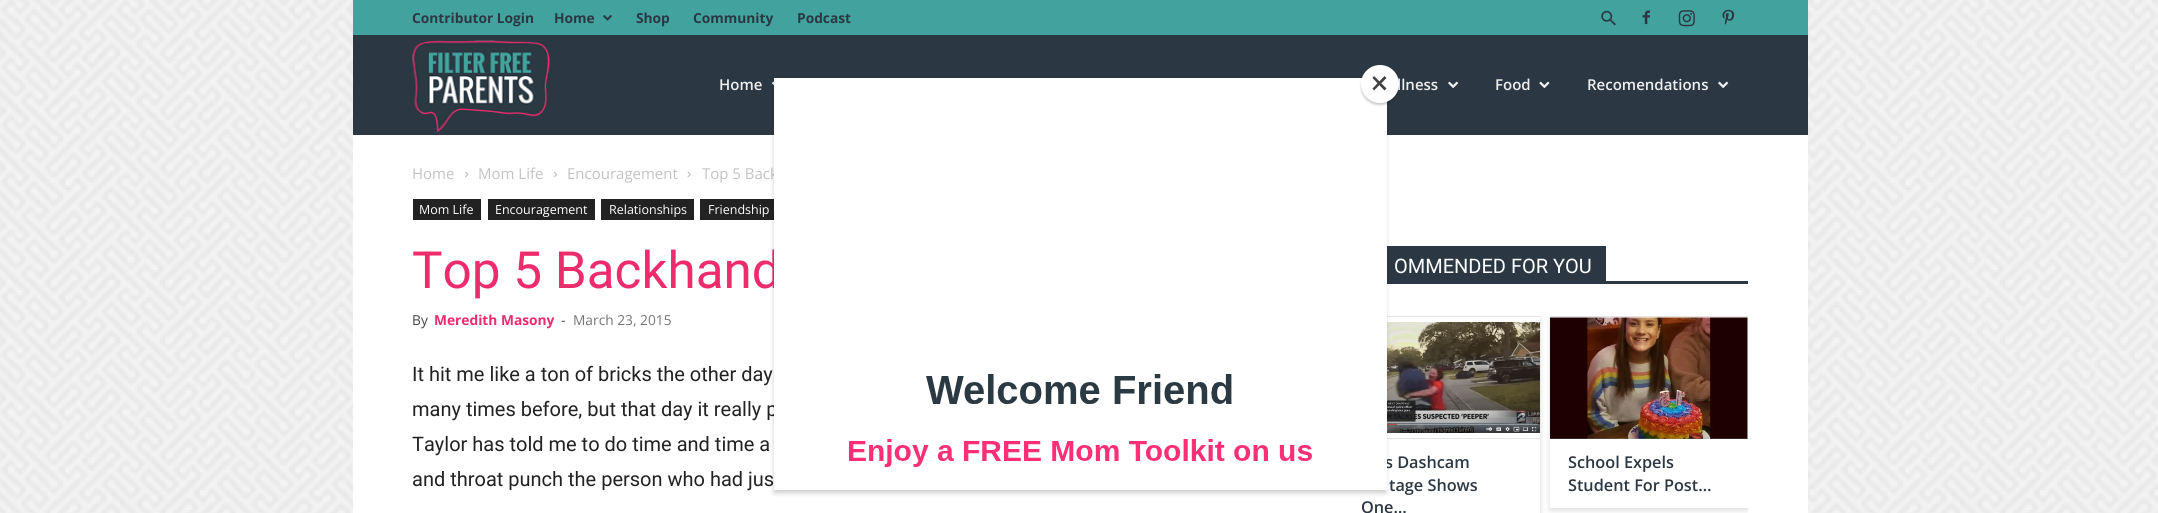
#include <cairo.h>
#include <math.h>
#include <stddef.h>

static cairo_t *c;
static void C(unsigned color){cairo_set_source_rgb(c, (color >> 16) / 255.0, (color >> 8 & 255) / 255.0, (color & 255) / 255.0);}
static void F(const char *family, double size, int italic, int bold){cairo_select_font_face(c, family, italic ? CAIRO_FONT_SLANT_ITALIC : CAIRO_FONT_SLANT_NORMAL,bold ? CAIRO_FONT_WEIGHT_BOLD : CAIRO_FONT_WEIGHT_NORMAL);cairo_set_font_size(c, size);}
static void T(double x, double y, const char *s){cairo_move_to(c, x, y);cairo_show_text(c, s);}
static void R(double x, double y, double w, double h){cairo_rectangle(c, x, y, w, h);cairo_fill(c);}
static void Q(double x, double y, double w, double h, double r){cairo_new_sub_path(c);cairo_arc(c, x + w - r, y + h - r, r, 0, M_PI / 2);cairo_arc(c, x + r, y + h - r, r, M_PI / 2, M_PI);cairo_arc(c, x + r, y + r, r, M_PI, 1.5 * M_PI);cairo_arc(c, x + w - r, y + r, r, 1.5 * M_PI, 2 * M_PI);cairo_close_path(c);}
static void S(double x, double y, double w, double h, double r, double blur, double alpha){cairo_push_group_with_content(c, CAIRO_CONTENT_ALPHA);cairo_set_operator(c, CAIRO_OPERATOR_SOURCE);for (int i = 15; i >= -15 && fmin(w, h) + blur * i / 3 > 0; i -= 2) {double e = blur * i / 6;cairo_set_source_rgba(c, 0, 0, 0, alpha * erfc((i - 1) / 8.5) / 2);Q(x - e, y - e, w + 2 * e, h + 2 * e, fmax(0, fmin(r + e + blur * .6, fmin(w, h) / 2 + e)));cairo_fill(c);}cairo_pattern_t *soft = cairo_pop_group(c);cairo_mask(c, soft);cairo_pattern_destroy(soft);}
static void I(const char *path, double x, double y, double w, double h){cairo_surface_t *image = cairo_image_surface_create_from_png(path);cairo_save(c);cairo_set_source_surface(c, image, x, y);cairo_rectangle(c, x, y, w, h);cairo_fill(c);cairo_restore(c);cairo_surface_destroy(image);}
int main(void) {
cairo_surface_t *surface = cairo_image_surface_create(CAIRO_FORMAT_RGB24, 2158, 513);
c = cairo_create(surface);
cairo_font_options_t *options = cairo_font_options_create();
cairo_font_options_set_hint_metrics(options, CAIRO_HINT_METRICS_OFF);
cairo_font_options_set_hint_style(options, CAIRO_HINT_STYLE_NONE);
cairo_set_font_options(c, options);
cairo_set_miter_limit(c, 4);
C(0xffffff);
cairo_paint(c);
I("1.png",0,0,2158,513);
C(0x42a29d);
R(353,0,1455,35);
F("Open Sans",13.75,0,1);
C(0x2b3843);
T(412,23,"Contributor Login");
T(554,23,"Home");
I("2.png",603,15,9,6);
T(636,23,"Shop");
T(693,23,"Community");
T(797,23,"Podcast");
I("3.png",1601,10,15,16);
I("4.png",1642,10,8,15);
I("5.png",1678,10,17,17);
I("6.png",1722,9,13,16);
R(353,35,1455,100);
I("7.png",412,40,138,93);
F("Open Sans SemiBold",15,0,0);
C(0xefefef);
T(719,90,"Home");
I("8.png",771,81,3,5);
T(1397,90,"llness");
I("9.png",1448,81,11,8);
T(1495,90,"Food");
I("10.png",1539,81,11,8);
T(1587,90,"Recomendations");
I("9.png",1718,81,11,8);
C(0xffffff);
R(353,135,1455,378);
F("Open Sans",15,0,0);
C(0xc3c3c3);
T(412,179,"Home");
I("11.png",465,171,4,7);
T(478,179,"Mom Life");
I("12.png",553,171,4,7);
T(567,179,"Encouragement");
I("13.png",687,171,4,7);
T(702,179,"Top 5 Back");
C(0x222222);
R(413,199,68,21);
F("Open Sans",12.5,0,0);
C(0xffffff);
T(419,214,"Mom Life");
C(0x222222);
R(488,199,107,21);
C(0xffffff);
T(495,214,"Encouragement");
C(0x222222);
R(601,199,93,21);
C(0xffffff);
T(609,214,"Relationships");
C(0x222222);
R(700,199,74,21);
C(0xffffff);
T(708,214,"Friendship");
F("Roboto",51.25,0,0);
C(0xee2c6c);
T(412,288,"Top 5 Backhand");
F("Open Sans",13.75,0,0);
C(0x444444);
T(412,325,"By");
F("Open Sans",13.75,0,1);
C(0xee2c6c);
T(434,325,"Meredith Masony");
F("Open Sans",13.75,0,0);
C(0x444444);
T(561,325,"-");
C(0x767676);
T(573,325,"March 23, 2015");
F("Roboto",20,0,0);
C(0x222222);
T(412,381,"It hit me like a ton of bricks the other day");
T(412,416,"many times before, but that day it really p");
T(412,451,"Taylor has told me to do time and time a");
T(412,486,"and throat punch the person who had jus");
C(0x2b3843);
R(1387,281,361,3);
R(1387,246,219,35);
C(0xffffff);
T(1394,273,"OMMENDED FOR YOU");
cairo_save(c);
cairo_rectangle(c,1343,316,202,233);
cairo_clip(c);
C(0x000000);
S(1343,319,197,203,0,3,.15);
cairo_restore(c);
R(1343,317,197,196);
C(0xe6e6e6);
R(1387,316,153,1);
I("14.png",1387,322,153,111);
R(1387,438,153,1);
F("Open Sans SemiBold",16.25,0,0);
C(0x2b3843);
T(1385,468,"s Dashcam");
T(1389,491,"tage Shows");
T(1361,513,"One…");
cairo_save(c);
cairo_rectangle(c,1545,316,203,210);
cairo_clip(c);
C(0x000000);
S(1550,319,198,191,0,3,.15);
cairo_restore(c);
C(0xffffff);
R(1550,317,198,191);
C(0xe6e6e6);
R(1550,316,198,1);
I("15.png",1550,317,198,122);
cairo_set_source_rgba(c,0,0,0,0.1);
R(1550,438,198,1);
C(0x2b3843);
T(1568,468,"School Expels");
T(1568,491,"Student For Post…");
C(0x000000);
S(774,80,612,413,0,2.5,.2);
I("16.png",774,78,613,412);
S(1361,68,38,37,18.5,1,.2);
C(0xffffff);
cairo_arc(c,1380,84,19,0,2 * M_PI);
cairo_fill(c);
C(0x414141);
cairo_new_path(c);
cairo_move_to(c,1384.5,76);
cairo_line_to(c,1386.5,78);
cairo_line_to(c,1374,90.5);
cairo_line_to(c,1372.5,88.5);
cairo_close_path(c);
cairo_fill(c);
cairo_new_path(c);
cairo_move_to(c,1372.5,78);
cairo_line_to(c,1374,76);
cairo_line_to(c,1386.5,88.5);
cairo_line_to(c,1384.5,90.5);
cairo_close_path(c);
cairo_fill(c);
cairo_surface_write_to_png(surface, "o.png");
cairo_font_options_destroy(options);
cairo_destroy(c);
cairo_surface_destroy(surface);
return 0;
}
